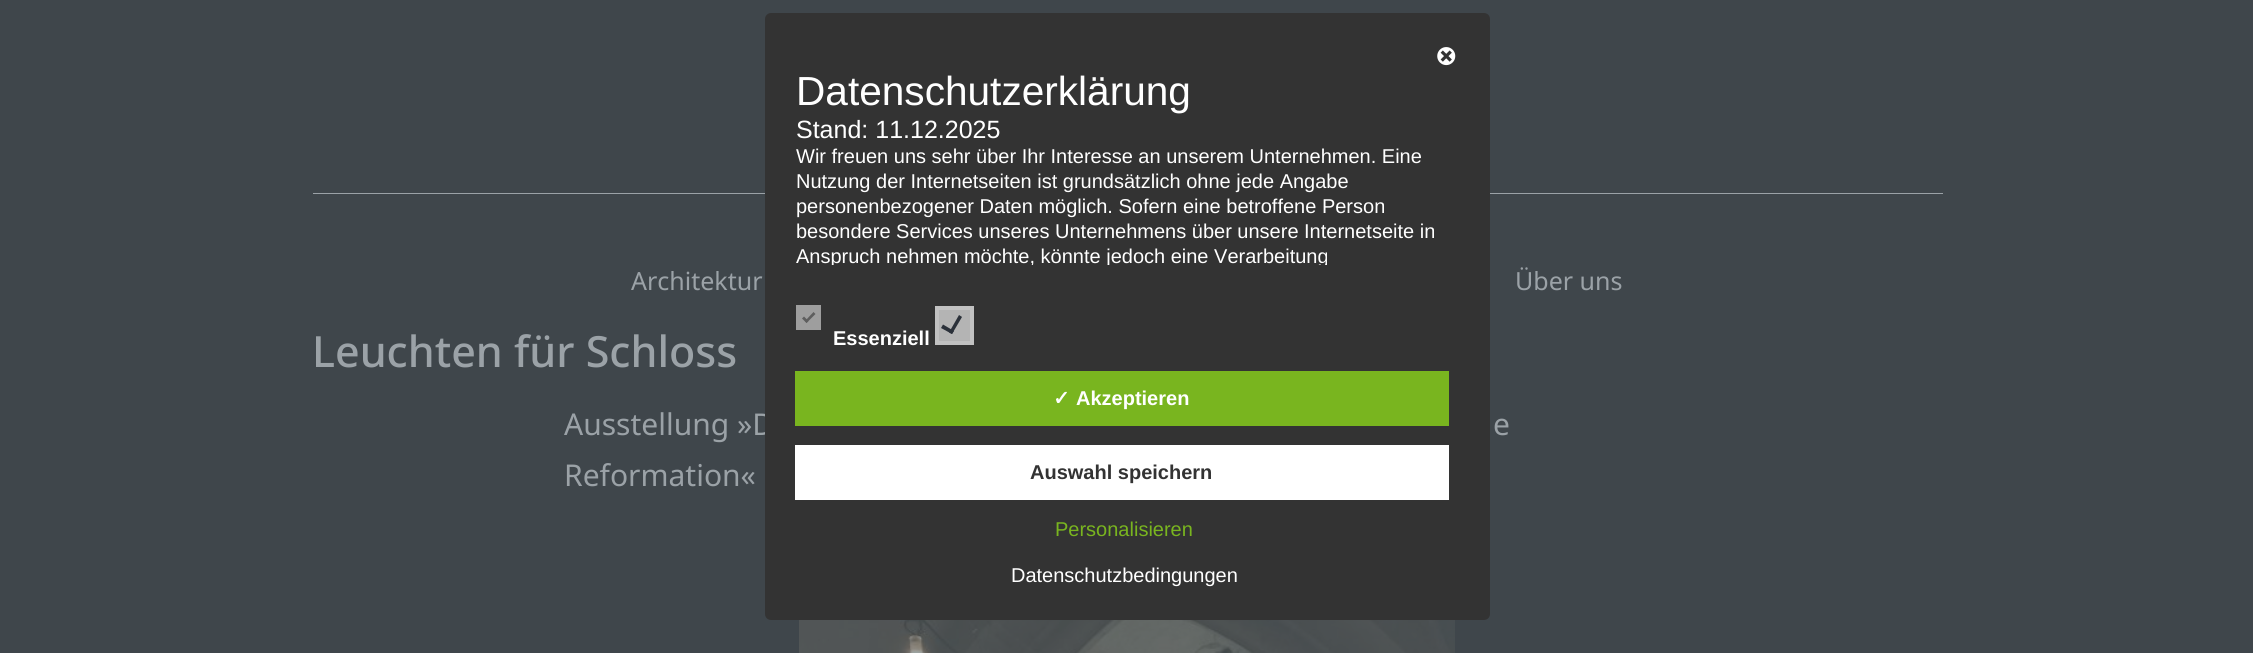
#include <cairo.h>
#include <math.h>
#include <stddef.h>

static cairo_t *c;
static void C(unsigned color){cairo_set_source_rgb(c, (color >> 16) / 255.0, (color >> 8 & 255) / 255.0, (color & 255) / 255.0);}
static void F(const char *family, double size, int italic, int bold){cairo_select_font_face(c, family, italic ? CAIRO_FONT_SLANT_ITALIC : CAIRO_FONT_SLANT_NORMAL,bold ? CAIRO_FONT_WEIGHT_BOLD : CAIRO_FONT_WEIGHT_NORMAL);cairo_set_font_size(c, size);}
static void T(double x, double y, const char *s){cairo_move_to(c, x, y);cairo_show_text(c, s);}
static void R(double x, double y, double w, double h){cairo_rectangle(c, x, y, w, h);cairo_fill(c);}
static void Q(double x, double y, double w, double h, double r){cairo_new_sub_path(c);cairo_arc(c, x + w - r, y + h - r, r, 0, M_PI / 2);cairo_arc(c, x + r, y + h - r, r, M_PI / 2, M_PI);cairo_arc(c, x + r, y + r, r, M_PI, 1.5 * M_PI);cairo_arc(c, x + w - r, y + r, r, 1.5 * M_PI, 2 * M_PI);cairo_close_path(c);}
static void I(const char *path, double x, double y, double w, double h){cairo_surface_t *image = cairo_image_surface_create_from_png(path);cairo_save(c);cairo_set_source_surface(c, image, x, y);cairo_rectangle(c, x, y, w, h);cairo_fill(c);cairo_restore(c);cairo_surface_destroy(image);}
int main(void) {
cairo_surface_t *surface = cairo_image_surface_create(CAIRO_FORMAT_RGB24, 2253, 653);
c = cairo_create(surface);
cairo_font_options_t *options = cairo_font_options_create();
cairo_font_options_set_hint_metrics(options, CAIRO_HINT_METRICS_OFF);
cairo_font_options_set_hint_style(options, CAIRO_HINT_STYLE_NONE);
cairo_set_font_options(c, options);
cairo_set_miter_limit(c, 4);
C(0x3f464b);
cairo_paint(c);
C(0x9ba2a7);
R(313,193,1630,1);
F("Noto Sans",30,0,0);
T(564,435,"Ausstellung »D");
C(0x333333);
Q(765,13,725,607,6);
cairo_fill(c);
I("1.png",1437,47,19,19);
F("Liberation Sans",40.6,0,0);
C(0xffffff);
T(796,105,"Datenschutzerklärung");
F("Liberation Sans",25,0,0);
T(796,138,"Stand: 11.12.2025");
F("Liberation Sans",20,0,0);
T(796,163,"Wir freuen uns sehr über Ihr Interesse an unserem Unternehmen. Eine");
T(796,188,"Nutzung der Internetseiten ist grundsätzlich ohne jede Angabe");
T(796,213,"personenbezogener Daten möglich. Sofern eine betroffene Person");
T(796,238,"besondere Services unseres Unternehmens über unsere Internetseite in");
cairo_save(c);
cairo_rectangle(c,796,69,675,196);
cairo_clip(c);
T(796,263,"Anspruch nehmen möchte, könnte jedoch eine Verarbeitung");
cairo_restore(c);
C(0x9e9e9e);
R(796,305,25,25);
C(0x5e5e5e);
cairo_new_path(c);
cairo_move_to(c,813.5,312);
cairo_line_to(c,815.5,314);
cairo_line_to(c,806.5,323);
cairo_line_to(c,805,321);
cairo_close_path(c);
cairo_fill(c);
cairo_new_path(c);
cairo_move_to(c,804,316.5);
cairo_line_to(c,808.5,321);
cairo_line_to(c,806.5,323);
cairo_line_to(c,802,318.5);
cairo_close_path(c);
cairo_fill(c);
F("Liberation Sans",20,0,1);
C(0xffffff);
T(833,345,"Essenziell");
C(0xb4b4b4);
cairo_rectangle(c,937,308,35,35);
cairo_fill_preserve(c);
C(0xc2c2c2);
cairo_set_line_width(c,4);
cairo_stroke(c);
C(0x2b313a);
cairo_new_path(c);
cairo_move_to(c,959,315);
cairo_line_to(c,962,317);
cairo_line_to(c,952,334);
cairo_line_to(c,949,332.5);
cairo_close_path(c);
cairo_fill(c);
cairo_new_path(c);
cairo_move_to(c,943,324.5);
cairo_line_to(c,954,331);
cairo_line_to(c,952,334);
cairo_line_to(c,941,328);
cairo_close_path(c);
cairo_fill(c);
C(0x79b51f);
R(795,371,654,55);
F("DejaVu Sans",20,0,1);
C(0xffffff);
T(1053,405,"✓");
F("Liberation Sans",20,0,1);
T(1076,405,"Akzeptieren");
R(795,445,654,55);
C(0x333333);
T(1030,479,"Auswahl speichern");
F("Liberation Sans",20,0,0);
C(0x79b51f);
T(1055,536,"Personalisieren");
C(0xffffff);
T(1011,582,"Datenschutzbedingungen");
F("Noto Sans",25,0,0);
C(0x9ba2a7);
T(631,290,"Architektur");
T(1515,290,"Über uns");
F("Noto Sans Medium",43,0,0);
T(312,367,"Leuchten für Schloss");
F("Noto Sans",30,0,0);
T(1493,435,"e");
T(564,486,"Reformation«");
I("2.png",799,620,656,33);
cairo_surface_write_to_png(surface, "o.png");
cairo_font_options_destroy(options);
cairo_destroy(c);
cairo_surface_destroy(surface);
return 0;
}
